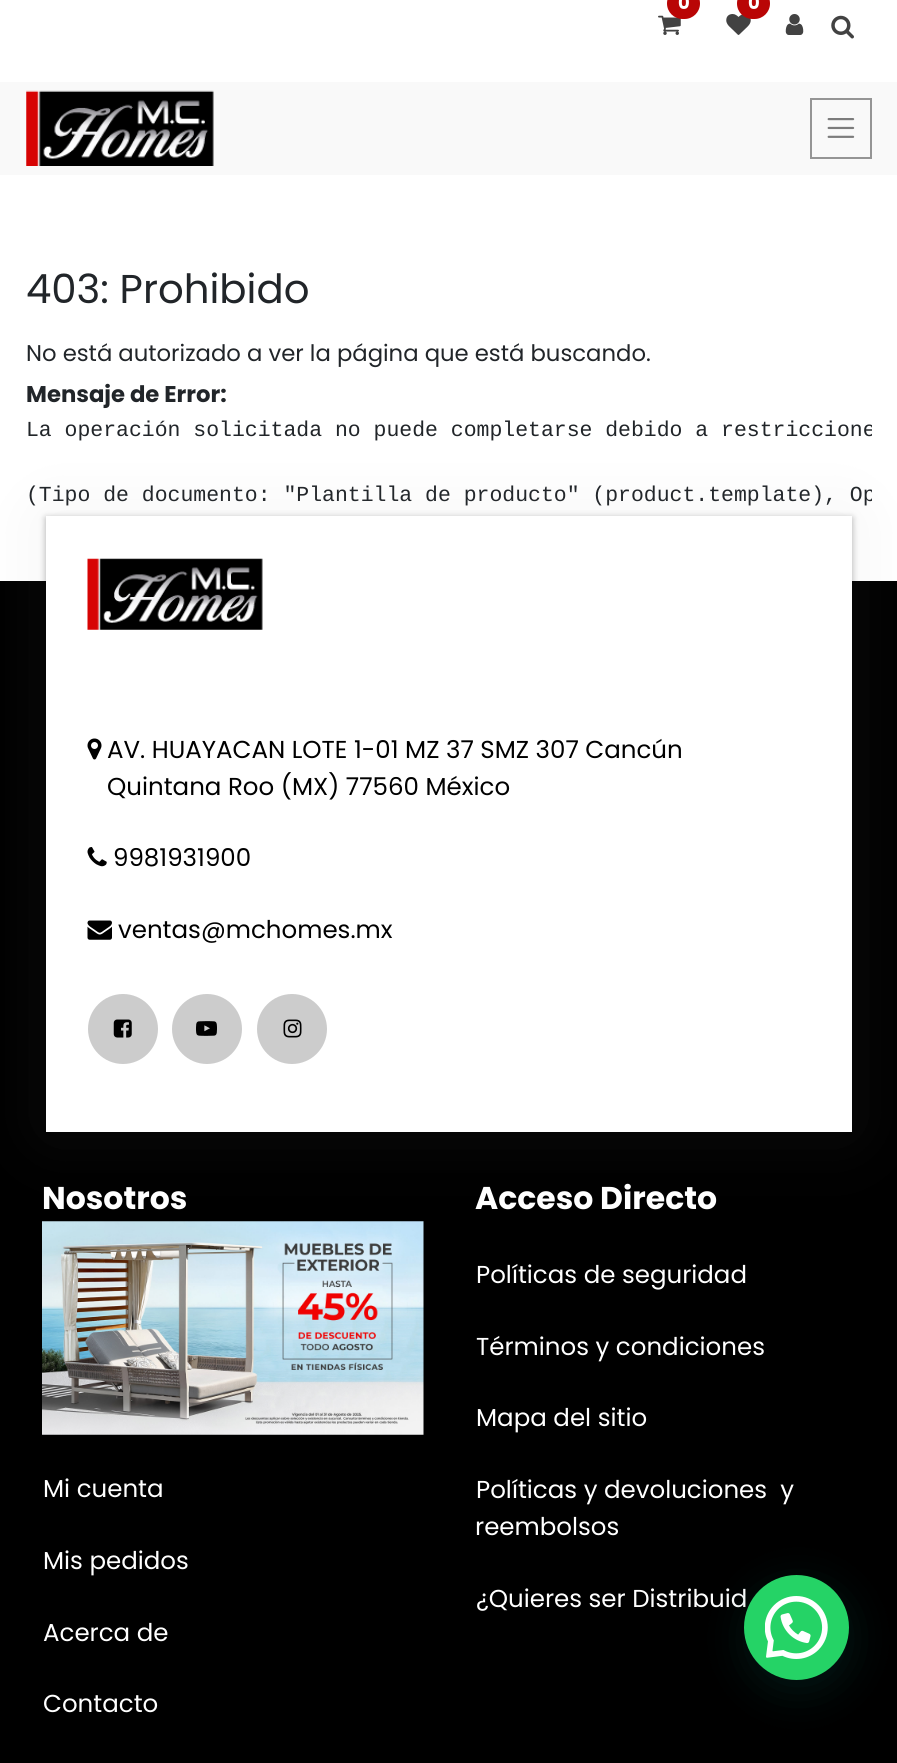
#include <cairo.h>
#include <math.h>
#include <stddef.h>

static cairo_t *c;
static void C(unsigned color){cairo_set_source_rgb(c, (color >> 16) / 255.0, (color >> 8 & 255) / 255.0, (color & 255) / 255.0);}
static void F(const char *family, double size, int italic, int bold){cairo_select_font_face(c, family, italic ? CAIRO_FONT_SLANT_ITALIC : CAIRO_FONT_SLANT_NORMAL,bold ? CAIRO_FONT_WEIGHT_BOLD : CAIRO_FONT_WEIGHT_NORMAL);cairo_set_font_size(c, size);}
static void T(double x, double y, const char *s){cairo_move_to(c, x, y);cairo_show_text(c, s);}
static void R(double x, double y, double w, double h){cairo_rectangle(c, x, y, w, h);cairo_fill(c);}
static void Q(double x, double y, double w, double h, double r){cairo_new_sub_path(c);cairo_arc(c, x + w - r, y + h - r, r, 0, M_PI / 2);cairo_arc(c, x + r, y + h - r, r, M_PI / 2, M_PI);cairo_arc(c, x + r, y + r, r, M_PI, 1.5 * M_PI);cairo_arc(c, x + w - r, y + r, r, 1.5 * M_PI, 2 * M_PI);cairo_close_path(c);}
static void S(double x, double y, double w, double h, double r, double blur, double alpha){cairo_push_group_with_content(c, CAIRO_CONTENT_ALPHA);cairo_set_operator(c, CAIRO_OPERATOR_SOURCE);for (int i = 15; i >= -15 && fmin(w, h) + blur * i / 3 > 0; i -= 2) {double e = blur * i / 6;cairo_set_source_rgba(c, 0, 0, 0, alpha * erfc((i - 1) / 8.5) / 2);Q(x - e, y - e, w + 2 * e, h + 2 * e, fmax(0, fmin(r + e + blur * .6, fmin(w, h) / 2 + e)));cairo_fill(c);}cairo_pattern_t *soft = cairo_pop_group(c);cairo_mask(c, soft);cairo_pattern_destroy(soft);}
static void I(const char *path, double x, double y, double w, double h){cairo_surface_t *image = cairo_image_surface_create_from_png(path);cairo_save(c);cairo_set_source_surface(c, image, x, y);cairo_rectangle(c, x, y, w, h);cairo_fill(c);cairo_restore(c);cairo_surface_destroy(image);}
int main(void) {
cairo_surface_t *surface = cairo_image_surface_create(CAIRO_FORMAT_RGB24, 897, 1763);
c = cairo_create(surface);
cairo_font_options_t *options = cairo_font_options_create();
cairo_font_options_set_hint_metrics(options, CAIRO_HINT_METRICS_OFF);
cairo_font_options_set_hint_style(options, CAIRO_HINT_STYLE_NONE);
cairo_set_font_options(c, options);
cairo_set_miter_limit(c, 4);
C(0xffffff);
cairo_paint(c);
I("1.png",658,15,23,20);
C(0xb90505);
Q(667,-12,33,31,15.5);
cairo_fill(c);
F("Poppins",18,0,1);
C(0xffffff);
T(678,9,"0");
I("2.png",726,14,25,21);
C(0xb90505);
Q(737,-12,33,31,15.5);
cairo_fill(c);
C(0xffffff);
T(748,9,"0");
I("3.png",785,14,19,21);
I("4.png",831,15,23,24);
C(0xf9f9f9);
R(0,82,897,93);
I("5.png",26,90,188,76);
cairo_rectangle(c,811,99,60,59);
C(0x959595);
cairo_stroke(c);
I("6.png",827,118,28,20);
F("Poppins",40.25,0,0);
C(0x212529);
T(26,303,"403: Prohibido");
F("Poppins",22.75,0,0);
T(26,361,"No está autorizado a ver la página que está buscando.");
F("Poppins",22.75,0,1);
T(26,402,"Mensaje de Error:");
cairo_save(c);
cairo_rectangle(c,26,415,846,96);
cairo_clip(c);
F("Liberation Mono",21.45,0,0);
T(26,436,"La operación solicitada no puede completarse debido a restriccione");
T(26,501,"(Tipo de documento: \"Plantilla de producto\" (product.template), Op");
cairo_restore(c);
C(0x000000);
R(0,581,897,1182);
C(0x808080);
S(46,516,806,616,0,35,.1);
C(0x000000);
S(46,518,806,616,0,3.5,.3);
C(0xffffff);
R(46,516,806,616);
I("7.png",87,558,176,72);
I("8.png",87,738,15,22);
F("Poppins",24.5,0,0);
C(0x000000);
T(107,758,"AV. HUAYACAN LOTE 1-01 MZ 37 SMZ 307 Cancún");
T(107,795,"Quintana Roo (MX) 77560 México");
I("9.png",87,847,20,20);
T(113,866,"9981931900");
I("10.png",87,920,25,20);
T(118,938,"ventas@mchomes.mx");
C(0xcccccc);
cairo_new_path(c);
cairo_arc(c,123,1029,35,0,2 * M_PI);
cairo_fill(c);
I("11.png",113,1019,19,19);
cairo_arc(c,207,1029,35,0,2 * M_PI);
cairo_fill(c);
I("12.png",196,1021,21,15);
cairo_arc(c,292,1029,35,0,2 * M_PI);
cairo_fill(c);
I("13.png",283,1019,19,19);
F("Poppins",31.5,0,1);
C(0xffffff);
T(42,1209,"Nosotros");
I("14.png",42,1221,382,214);
F("Poppins",24.5,0,0);
T(43,1497,"Mi cuenta");
T(43,1569,"Mis pedidos");
T(43,1641,"Acerca de");
T(43,1712,"Contacto");
F("Poppins",31.5,0,1);
T(475,1209,"Acceso Directo");
F("Poppins",24.5,0,0);
T(476,1283,"Políticas de seguridad");
T(476,1355,"Términos y condiciones");
T(476,1426,"Mapa del sitio");
T(476,1498,"Políticas y devoluciones  y");
T(475,1535,"reembolsos");
T(476,1607,"¿Quieres ser Distribuid");
C(0x075e54);
S(746,1586,105,105,52.5,21,.24);
C(0x25d366);
cairo_arc(c,796.5,1627.5,52.5,0,2 * M_PI);
cairo_fill(c);
I("15.png",765,1596,63,63);
cairo_surface_write_to_png(surface, "o.png");
cairo_font_options_destroy(options);
cairo_destroy(c);
cairo_surface_destroy(surface);
return 0;
}
